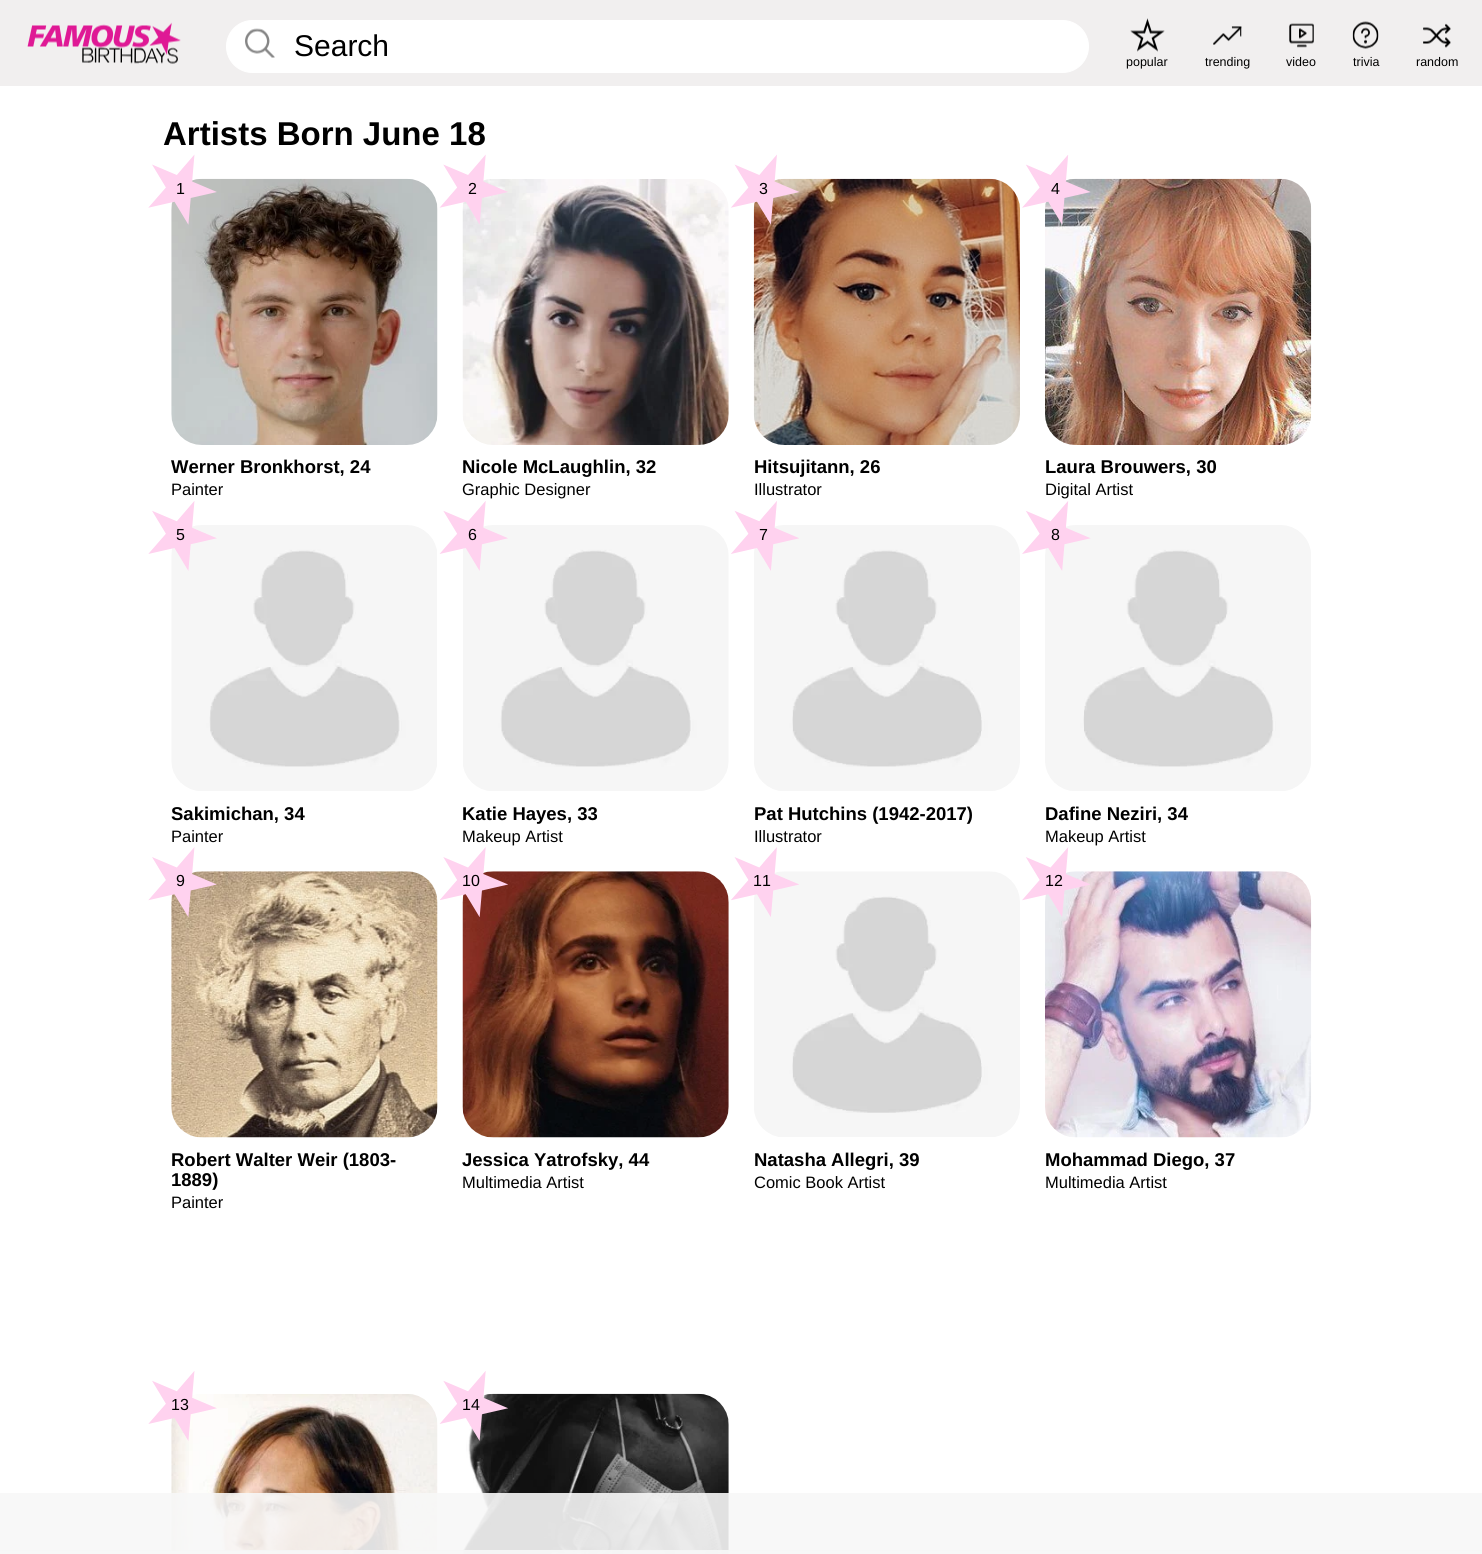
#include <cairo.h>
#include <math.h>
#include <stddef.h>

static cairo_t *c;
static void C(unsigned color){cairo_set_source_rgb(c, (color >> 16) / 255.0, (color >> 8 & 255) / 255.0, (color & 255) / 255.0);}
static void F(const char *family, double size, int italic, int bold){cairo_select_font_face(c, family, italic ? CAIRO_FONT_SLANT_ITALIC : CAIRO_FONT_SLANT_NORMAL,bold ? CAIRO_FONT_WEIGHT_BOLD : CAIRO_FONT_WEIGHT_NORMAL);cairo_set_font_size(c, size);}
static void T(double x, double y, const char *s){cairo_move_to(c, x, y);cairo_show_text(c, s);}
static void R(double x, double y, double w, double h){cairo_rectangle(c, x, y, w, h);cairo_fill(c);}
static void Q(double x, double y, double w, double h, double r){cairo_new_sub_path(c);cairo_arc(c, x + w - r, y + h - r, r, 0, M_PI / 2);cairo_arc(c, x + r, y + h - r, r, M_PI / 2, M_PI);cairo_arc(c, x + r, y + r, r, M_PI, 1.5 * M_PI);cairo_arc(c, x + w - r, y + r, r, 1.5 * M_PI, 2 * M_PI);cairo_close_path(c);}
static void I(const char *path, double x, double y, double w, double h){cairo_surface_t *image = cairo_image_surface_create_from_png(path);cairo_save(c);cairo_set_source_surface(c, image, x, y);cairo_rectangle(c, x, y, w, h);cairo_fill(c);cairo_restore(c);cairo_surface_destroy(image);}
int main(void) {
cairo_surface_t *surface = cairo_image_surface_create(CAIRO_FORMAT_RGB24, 1482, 1554);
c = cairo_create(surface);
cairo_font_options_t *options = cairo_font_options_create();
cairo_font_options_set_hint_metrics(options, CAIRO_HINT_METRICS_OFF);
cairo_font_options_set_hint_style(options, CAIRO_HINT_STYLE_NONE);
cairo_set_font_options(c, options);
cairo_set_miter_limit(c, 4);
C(0xffffff);
cairo_paint(c);
C(0xf1efef);
R(0,0,1482,86);
I("1.png",27,22,154,42);
C(0xffffff);
Q(226.5,20.5,862,52,26);
cairo_fill_preserve(c);
cairo_set_line_width(c,1);
cairo_stroke(c);
I("2.png",245,28,30,30);
F("Liberation Sans",30,0,0);
C(0x000000);
T(294,56,"Search");
I("3.png",1130,18,35,34);
F("Liberation Sans",12.5,0,0);
T(1126,66,"popular");
I("4.png",1213,26,29,19);
T(1205,66,"trending");
I("5.png",1289,23,25,25);
T(1286,66,"video");
I("6.png",1352,21,27,28);
T(1353,66,"trivia");
I("7.png",1423,23,28,25);
T(1416,66,"random");
F("Liberation Sans",33,0,1);
T(163,145,"Artists Born June 18");
I("8.png",171,178,267,267);
I("9.png",148,154,69,71);
F("Liberation Sans",16,0,0);
T(176,194,"1");
F("Liberation Sans",18.5,0,1);
T(171,473,"Werner Bronkhorst, 24");
F("Liberation Sans",16.5,0,0);
T(171,495,"Painter");
I("10.png",462,179,267,266);
I("11.png",439,154,69,71);
F("Liberation Sans",16,0,0);
T(468,194,"2");
F("Liberation Sans",18.5,0,1);
T(462,473,"Nicole McLaughlin, 32");
F("Liberation Sans",16.5,0,0);
T(462,495,"Graphic Designer");
I("12.png",753,178,267,267);
I("13.png",731,154,68,71);
F("Liberation Sans",16,0,0);
T(759,194,"3");
F("Liberation Sans",18.5,0,1);
T(754,473,"Hitsujitann, 26");
F("Liberation Sans",16.5,0,0);
T(754,495,"Illustrator");
I("14.png",1045,178,267,267);
I("15.png",1022,155,69,70);
F("Liberation Sans",16,0,0);
T(1051,194,"4");
F("Liberation Sans",18.5,0,1);
T(1045,473,"Laura Brouwers, 30");
F("Liberation Sans",16.5,0,0);
T(1045,495,"Digital Artist");
I("16.png",171,525,266,266);
I("17.png",148,501,69,70);
F("Liberation Sans",16,0,0);
T(176,540,"5");
F("Liberation Sans",18.5,0,1);
T(171,820,"Sakimichan, 34");
F("Liberation Sans",16.5,0,0);
T(171,842,"Painter");
I("18.png",463,525,266,266);
I("19.png",439,501,69,70);
F("Liberation Sans",16,0,0);
T(468,540,"6");
F("Liberation Sans",18.5,0,1);
T(462,820,"Katie Hayes, 33");
F("Liberation Sans",16.5,0,0);
T(462,842,"Makeup Artist");
I("20.png",754,525,266,266);
I("21.png",731,501,68,70);
F("Liberation Sans",16,0,0);
T(759,540,"7");
F("Liberation Sans",18.5,0,1);
T(754,820,"Pat Hutchins (1942-2017)");
F("Liberation Sans",16.5,0,0);
T(754,842,"Illustrator");
I("22.png",1045,525,266,266);
I("23.png",1022,501,69,70);
F("Liberation Sans",16,0,0);
T(1051,540,"8");
F("Liberation Sans",18.5,0,1);
T(1045,820,"Dafine Neziri, 34");
F("Liberation Sans",16.5,0,0);
T(1045,842,"Makeup Artist");
I("24.png",171,871,267,267);
I("25.png",148,847,69,70);
F("Liberation Sans",16,0,0);
T(176,886,"9");
F("Liberation Sans",18.5,0,1);
T(171,1166,"Robert Walter Weir (1803-");
T(171,1186,"1889)");
F("Liberation Sans",16.5,0,0);
T(171,1208,"Painter");
I("26.png",462,871,267,267);
I("27.png",440,847,68,70);
F("Liberation Sans",16,0,0);
T(462,886,"10");
F("Liberation Sans",18.5,0,1);
T(462,1166,"Jessica Yatrofsky, 44");
F("Liberation Sans",16.5,0,0);
T(462,1188,"Multimedia Artist");
I("28.png",754,871,266,266);
I("29.png",731,847,68,70);
F("Liberation Sans",16,0,0);
T(753,886,"11");
F("Liberation Sans",18.5,0,1);
T(754,1166,"Natasha Allegri, 39");
F("Liberation Sans",16.5,0,0);
T(754,1188,"Comic Book Artist");
I("30.png",1045,871,267,267);
I("31.png",1022,847,68,70);
F("Liberation Sans",16,0,0);
T(1045,886,"12");
F("Liberation Sans",18.5,0,1);
T(1045,1166,"Mohammad Diego, 37");
F("Liberation Sans",16.5,0,0);
T(1045,1188,"Multimedia Artist");
I("32.png",171,1394,267,160);
I("33.png",148,1371,69,70);
F("Liberation Sans",16,0,0);
T(171,1410,"13");
I("34.png",462,1393,267,161);
I("35.png",439,1371,69,70);
T(462,1410,"14");
cairo_set_source_rgba(c,0.969,0.969,0.969,0.9);
R(0,1550,1482,4);
cairo_set_source_rgba(c,0.871,0.871,0.871,0.7);
R(0,1550,1482,1);
cairo_set_source_rgba(c,0.969,0.969,0.969,0.9);
R(0,1493,1482,61);
cairo_surface_write_to_png(surface, "o.png");
cairo_font_options_destroy(options);
cairo_destroy(c);
cairo_surface_destroy(surface);
return 0;
}
